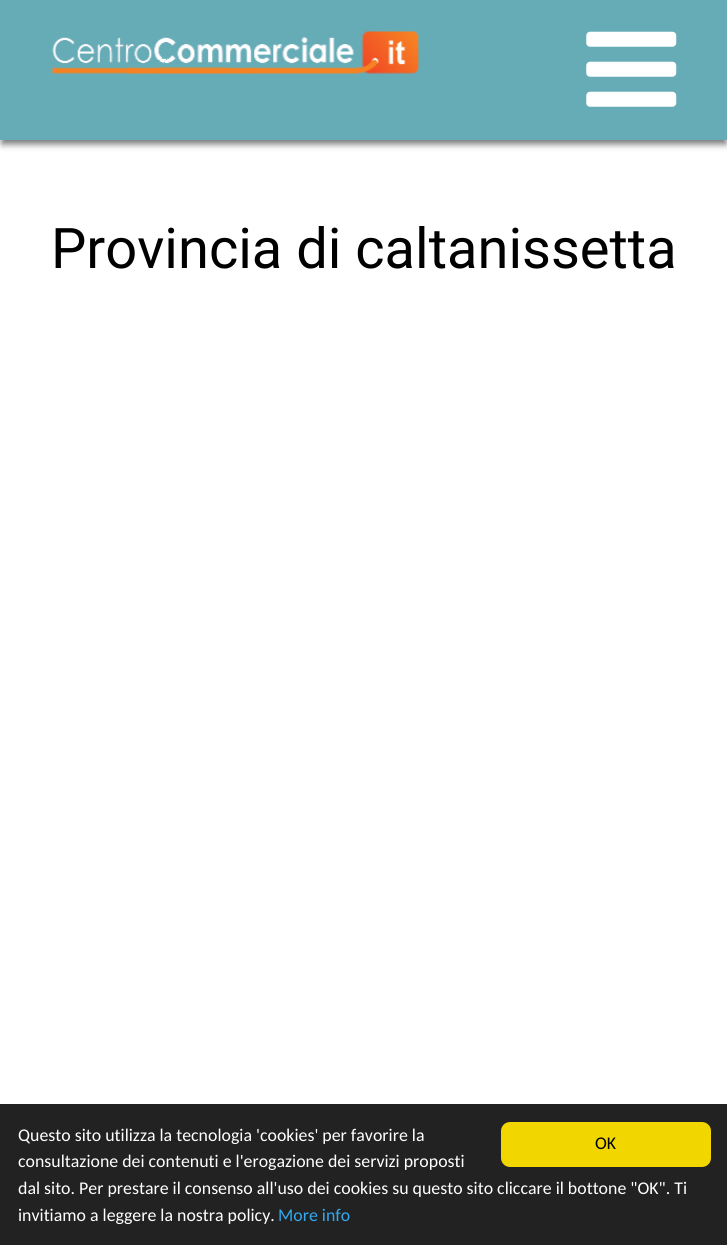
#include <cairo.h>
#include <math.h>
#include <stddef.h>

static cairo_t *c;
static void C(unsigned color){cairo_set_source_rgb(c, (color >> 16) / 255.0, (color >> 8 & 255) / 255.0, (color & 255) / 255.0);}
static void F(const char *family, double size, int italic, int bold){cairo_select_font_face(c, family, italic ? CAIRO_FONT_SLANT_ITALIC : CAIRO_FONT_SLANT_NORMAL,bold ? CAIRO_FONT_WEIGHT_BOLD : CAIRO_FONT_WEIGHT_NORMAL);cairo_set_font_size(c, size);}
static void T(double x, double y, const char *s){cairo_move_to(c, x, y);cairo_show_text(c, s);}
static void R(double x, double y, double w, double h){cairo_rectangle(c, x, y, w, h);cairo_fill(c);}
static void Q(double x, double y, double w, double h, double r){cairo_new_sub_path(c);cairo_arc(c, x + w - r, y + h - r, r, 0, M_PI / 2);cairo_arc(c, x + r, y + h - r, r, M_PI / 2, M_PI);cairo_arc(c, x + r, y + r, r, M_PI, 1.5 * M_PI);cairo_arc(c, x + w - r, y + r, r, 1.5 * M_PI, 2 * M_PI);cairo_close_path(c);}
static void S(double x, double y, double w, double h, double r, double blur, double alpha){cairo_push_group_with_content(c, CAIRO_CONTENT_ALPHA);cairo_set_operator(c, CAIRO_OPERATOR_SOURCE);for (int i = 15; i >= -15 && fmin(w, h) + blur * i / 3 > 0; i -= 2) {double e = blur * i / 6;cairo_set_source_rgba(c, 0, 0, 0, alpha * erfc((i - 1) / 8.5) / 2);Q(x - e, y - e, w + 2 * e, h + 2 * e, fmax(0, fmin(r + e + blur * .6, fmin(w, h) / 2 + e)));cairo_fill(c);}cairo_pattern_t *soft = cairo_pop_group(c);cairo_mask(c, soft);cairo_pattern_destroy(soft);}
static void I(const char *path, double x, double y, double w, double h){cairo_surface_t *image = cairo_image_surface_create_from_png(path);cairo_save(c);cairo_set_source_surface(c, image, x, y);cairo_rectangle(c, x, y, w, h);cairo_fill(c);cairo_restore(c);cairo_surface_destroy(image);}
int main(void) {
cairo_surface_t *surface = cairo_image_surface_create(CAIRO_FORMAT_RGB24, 727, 1245);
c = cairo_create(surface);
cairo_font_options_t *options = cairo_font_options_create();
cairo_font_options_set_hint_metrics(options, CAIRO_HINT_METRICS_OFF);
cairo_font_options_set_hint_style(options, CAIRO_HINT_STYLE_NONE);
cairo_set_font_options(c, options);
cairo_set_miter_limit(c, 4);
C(0xffffff);
cairo_paint(c);
C(0x000000);
S(2,7,724,137,0,3.5,.55);
C(0x66acb7);
R(0,0,727,140);
I("1.png",52,31,367,43);
I("2.png",586,31,91,76);
F("Roboto",56,0,0);
C(0x000000);
T(51,268,"Provincia di caltanissetta");
C(0x222222);
R(0,1104,727,141);
F("Carlito",17.85,0,0);
C(0xffffff);
T(18,1141,"Questo sito utilizza la tecnologia 'cookies' per favorire la");
T(18,1167,"consultazione dei contenuti e l'erogazione dei servizi proposti");
T(18,1194,"dal sito. Per prestare il consenso all'uso dei cookies su questo sito cliccare il bottone \"OK\". Ti");
T(18,1221,"invitiamo a leggere la nostra policy.");
C(0x31a8f0);
T(278,1221,"More info");
C(0xf1d600);
Q(501,1122,210,45,9);
cairo_fill(c);
C(0x000000);
T(595,1149,"OK");
cairo_surface_write_to_png(surface, "o.png");
cairo_font_options_destroy(options);
cairo_destroy(c);
cairo_surface_destroy(surface);
return 0;
}
